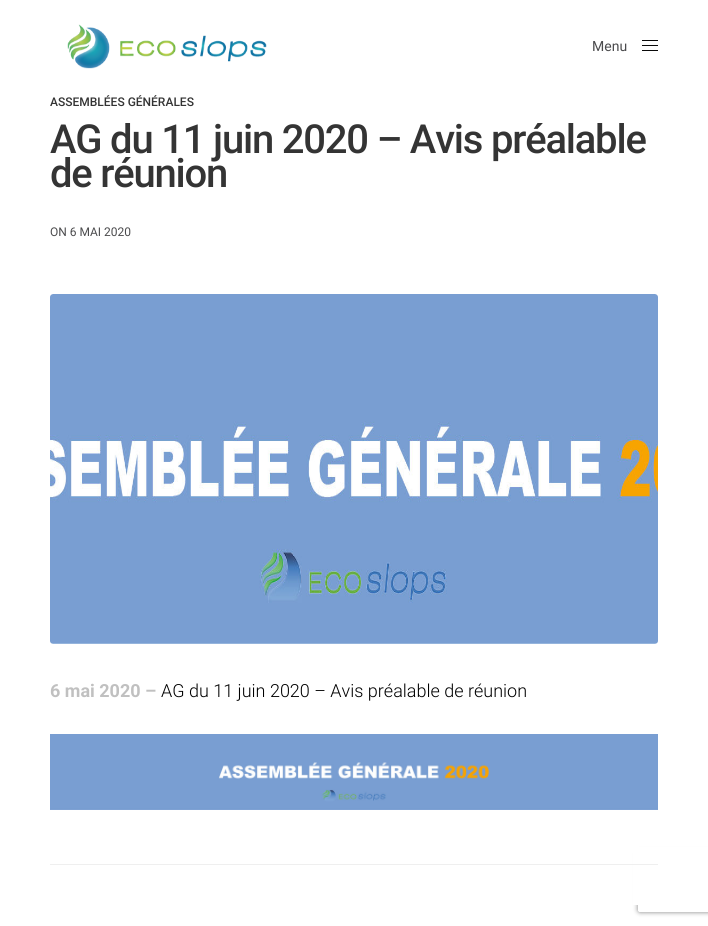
#include <cairo.h>
#include <math.h>
#include <stddef.h>

static cairo_t *c;
static void C(unsigned color){cairo_set_source_rgb(c, (color >> 16) / 255.0, (color >> 8 & 255) / 255.0, (color & 255) / 255.0);}
static void F(const char *family, double size, int italic, int bold){cairo_select_font_face(c, family, italic ? CAIRO_FONT_SLANT_ITALIC : CAIRO_FONT_SLANT_NORMAL,bold ? CAIRO_FONT_WEIGHT_BOLD : CAIRO_FONT_WEIGHT_NORMAL);cairo_set_font_size(c, size);}
static void T(double x, double y, const char *s){cairo_move_to(c, x, y);cairo_show_text(c, s);}
static void L(double x, double y, const char *s, double letter, double word){cairo_move_to(c, x, y);while (*s) {char ch[5] = {0};int n = 0;do ch[n++] = *s++; while ((*s & 0xC0) == 0x80);cairo_show_text(c, ch);cairo_rel_move_to(c, letter + word * (*ch == ' '), 0);}}
static void R(double x, double y, double w, double h){cairo_rectangle(c, x, y, w, h);cairo_fill(c);}
static void Q(double x, double y, double w, double h, double r){cairo_new_sub_path(c);cairo_arc(c, x + w - r, y + h - r, r, 0, M_PI / 2);cairo_arc(c, x + r, y + h - r, r, M_PI / 2, M_PI);cairo_arc(c, x + r, y + r, r, M_PI, 1.5 * M_PI);cairo_arc(c, x + w - r, y + r, r, 1.5 * M_PI, 2 * M_PI);cairo_close_path(c);}
static void S(double x, double y, double w, double h, double r, double blur, double alpha){cairo_push_group_with_content(c, CAIRO_CONTENT_ALPHA);cairo_set_operator(c, CAIRO_OPERATOR_SOURCE);for (int i = 15; i >= -15 && fmin(w, h) + blur * i / 3 > 0; i -= 2) {double e = blur * i / 6;cairo_set_source_rgba(c, 0, 0, 0, alpha * erfc((i - 1) / 8.5) / 2);Q(x - e, y - e, w + 2 * e, h + 2 * e, fmax(0, fmin(r + e + blur * .6, fmin(w, h) / 2 + e)));cairo_fill(c);}cairo_pattern_t *soft = cairo_pop_group(c);cairo_mask(c, soft);cairo_pattern_destroy(soft);}
static void I(const char *path, double x, double y, double w, double h){cairo_surface_t *image = cairo_image_surface_create_from_png(path);cairo_save(c);cairo_set_source_surface(c, image, x, y);cairo_rectangle(c, x, y, w, h);cairo_fill(c);cairo_restore(c);cairo_surface_destroy(image);}
int main(void) {
cairo_surface_t *surface = cairo_image_surface_create(CAIRO_FORMAT_RGB24, 708, 926);
c = cairo_create(surface);
cairo_font_options_t *options = cairo_font_options_create();
cairo_font_options_set_hint_metrics(options, CAIRO_HINT_METRICS_OFF);
cairo_font_options_set_hint_style(options, CAIRO_HINT_STYLE_NONE);
cairo_set_font_options(c, options);
cairo_set_miter_limit(c, 4);
C(0xffffff);
cairo_paint(c);
I("1.png",67,24,200,45);
F("Roboto",14,0,0);
C(0x4b4b4d);
T(592,51,"Menu");
C(0x090909);
R(642,40,16,1);
R(642,45,16,1);
R(642,50,16,1);
cairo_save(c);
cairo_set_fill_rule(c,CAIRO_FILL_RULE_EVEN_ODD);
cairo_new_path(c);
cairo_move_to(c,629,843);
cairo_line_to(c,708,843);
cairo_line_to(c,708,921);
cairo_line_to(c,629,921);
cairo_close_path(c);
cairo_move_to(c,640,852);
cairo_line_to(c,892,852);
cairo_curve_to(c,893,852,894,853,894,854);
cairo_line_to(c,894,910);
cairo_curve_to(c,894,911,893,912,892,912);
cairo_line_to(c,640,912);
cairo_curve_to(c,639,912,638,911,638,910);
cairo_line_to(c,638,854);
cairo_curve_to(c,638,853,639,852,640,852);
cairo_close_path(c);
cairo_clip(c);
C(0x808080);
S(638,852,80,60,2,2.5,1);
cairo_restore(c);
C(0xffffff);
R(633,847,75,58);
F("Roboto Medium",12,0,0);
C(0x343434);
T(50,106,"ASSEMBLÉES GÉNÉRALES");
F("Roboto Medium",40,0,0);
L(50,153,"AG du 11 juin 2020 – Avis préalable",-1.2,0);
L(50,187,"de réunion",-1.2,0);
F("Roboto",12,0,0);
C(0x4b4b4d);
T(50,236,"ON 6 MAI 2020");
I("2.png",50,294,608,350);
F("Roboto",18,0,1);
C(0xc0c0c0);
T(50,697,"6 mai 2020 –");
F("Roboto Light",18,0,0);
C(0x000000);
T(161,697,"AG du 11 juin 2020 – Avis préalable de réunion");
I("3.png",50,734,608,76);
C(0xefefef);
R(50,864,608,1);
cairo_surface_write_to_png(surface, "o.png");
cairo_font_options_destroy(options);
cairo_destroy(c);
cairo_surface_destroy(surface);
return 0;
}
